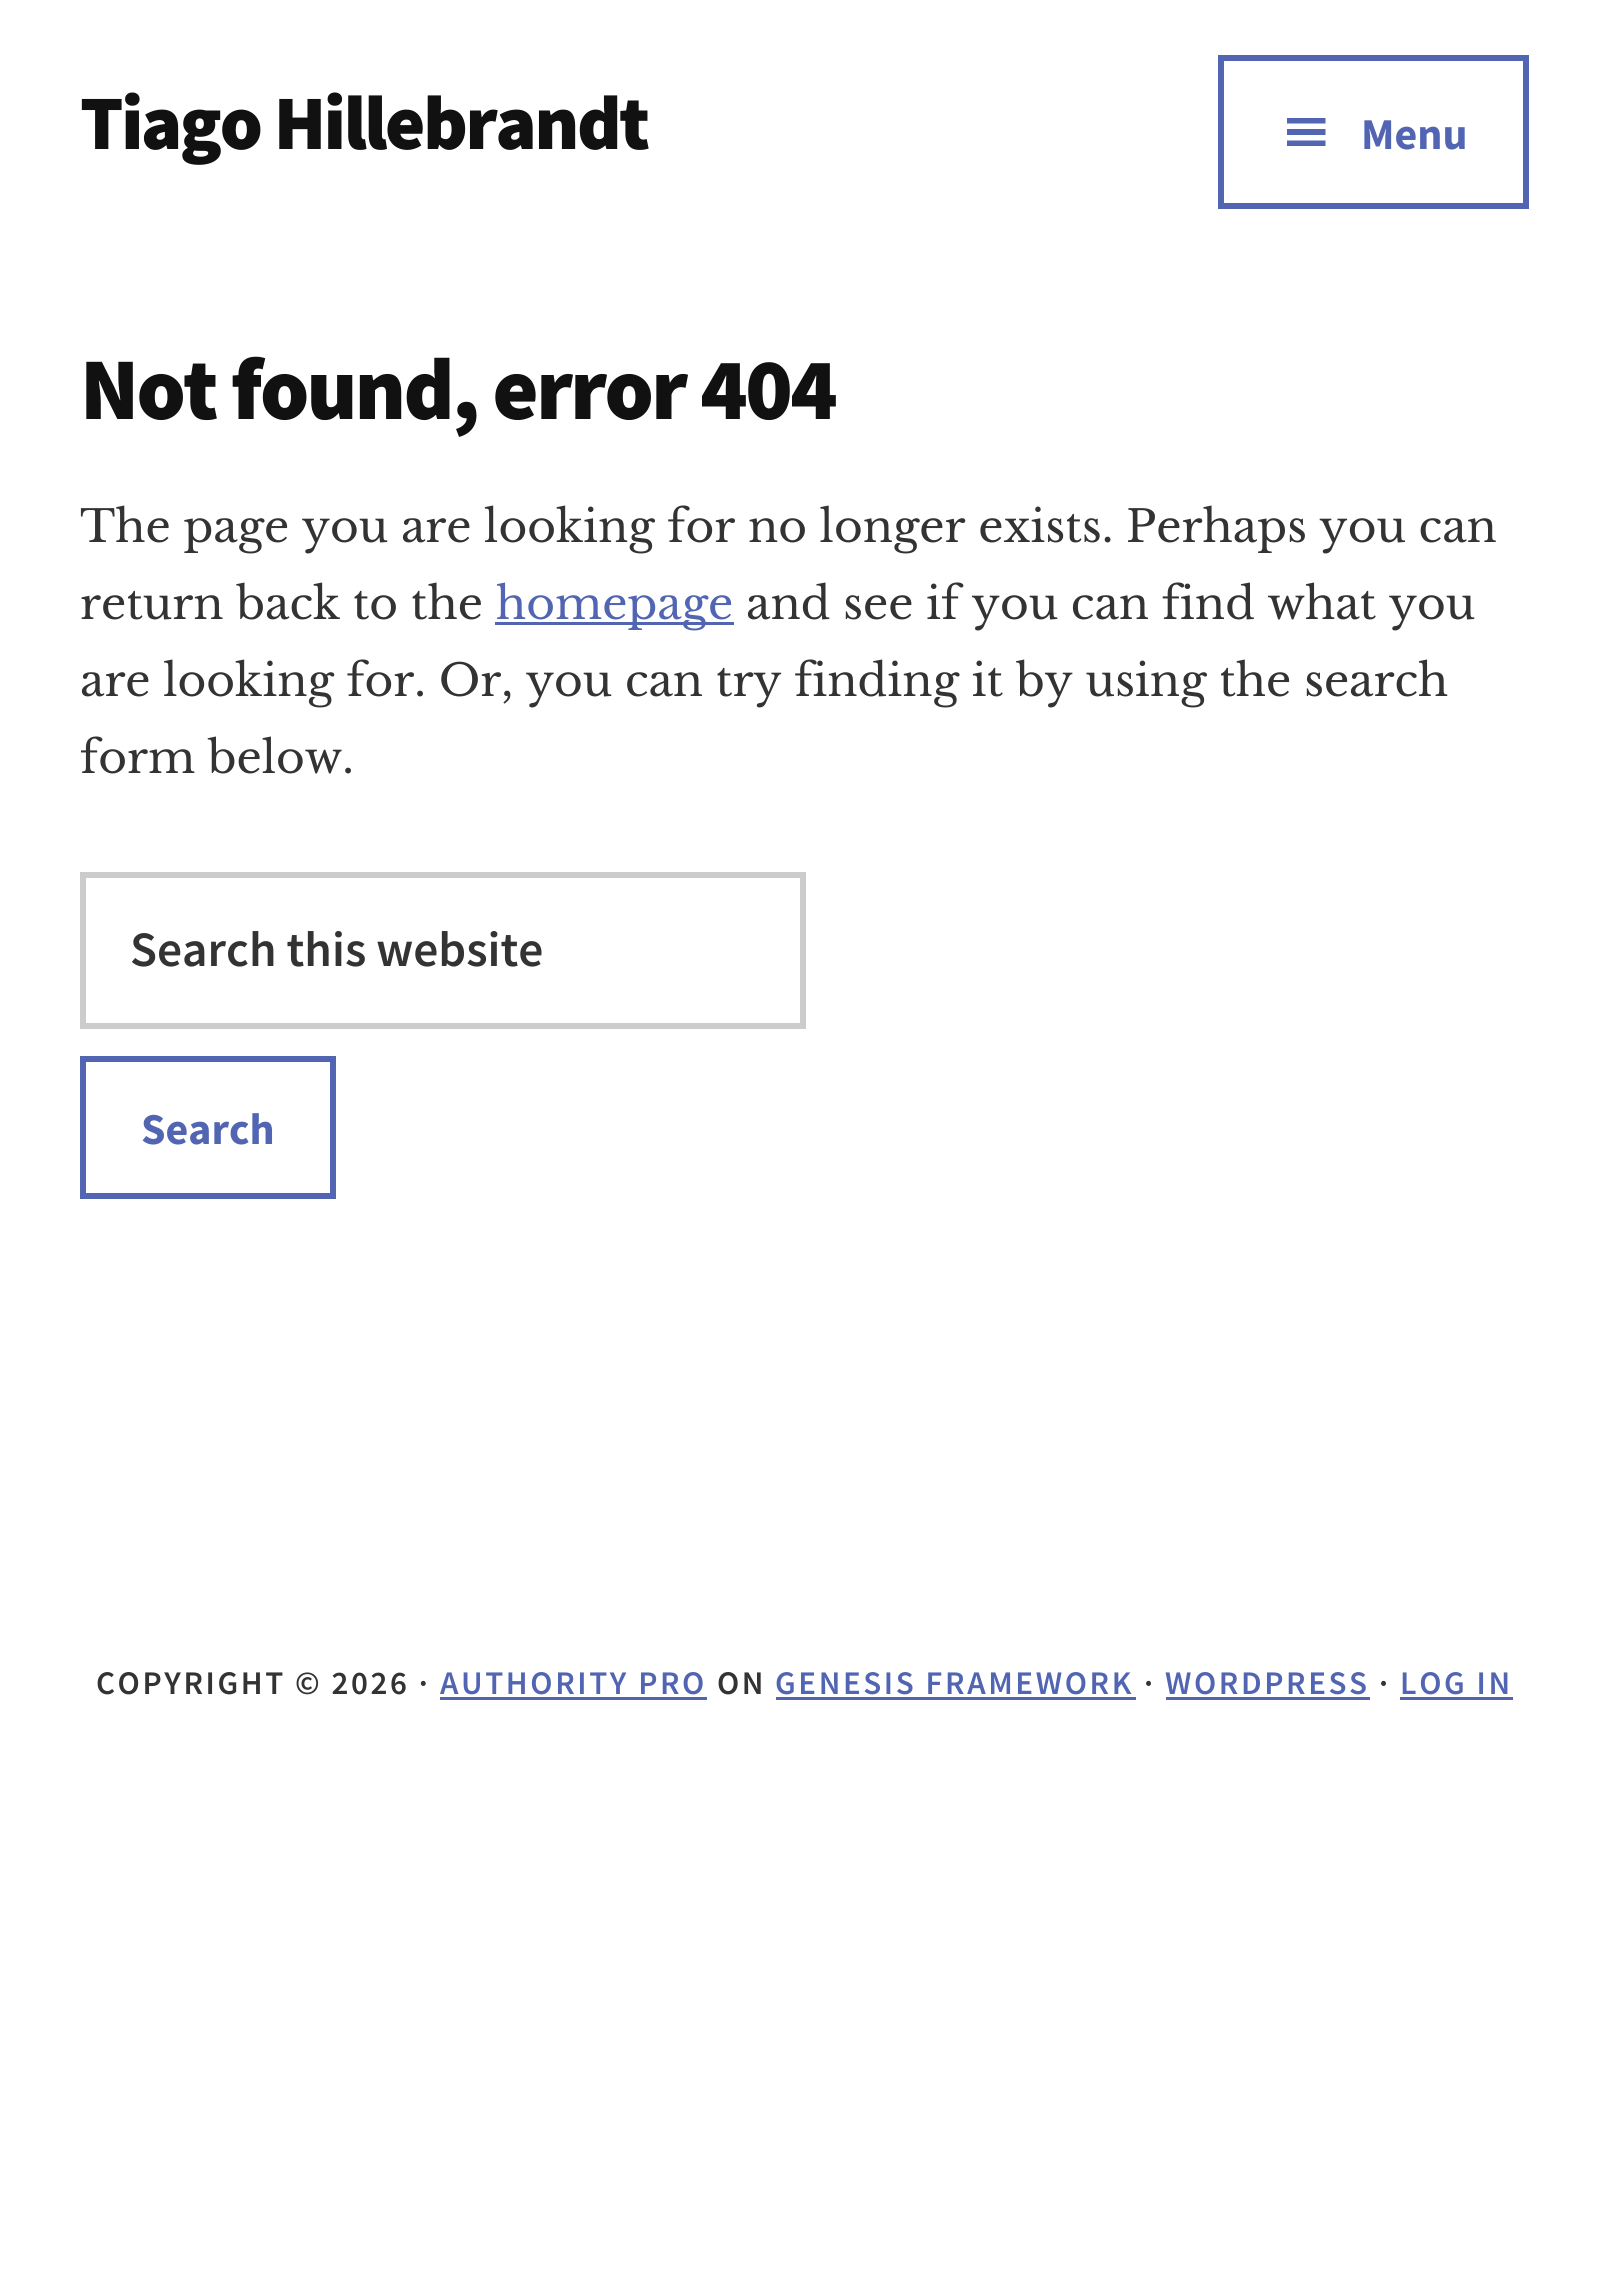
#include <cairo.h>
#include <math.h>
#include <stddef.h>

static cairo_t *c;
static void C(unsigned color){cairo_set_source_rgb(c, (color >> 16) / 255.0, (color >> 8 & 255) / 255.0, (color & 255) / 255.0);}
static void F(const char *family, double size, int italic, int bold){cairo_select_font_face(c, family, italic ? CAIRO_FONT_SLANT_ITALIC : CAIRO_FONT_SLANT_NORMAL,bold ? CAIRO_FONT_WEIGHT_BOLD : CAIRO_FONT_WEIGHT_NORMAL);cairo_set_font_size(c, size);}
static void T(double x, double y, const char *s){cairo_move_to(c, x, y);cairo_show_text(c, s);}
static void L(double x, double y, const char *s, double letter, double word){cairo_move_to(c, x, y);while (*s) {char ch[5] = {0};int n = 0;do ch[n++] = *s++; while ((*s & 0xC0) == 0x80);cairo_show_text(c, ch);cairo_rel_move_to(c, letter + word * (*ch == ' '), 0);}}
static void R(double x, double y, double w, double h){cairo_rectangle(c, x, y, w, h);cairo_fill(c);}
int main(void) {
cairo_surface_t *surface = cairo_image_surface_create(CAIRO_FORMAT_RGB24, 1608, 2278);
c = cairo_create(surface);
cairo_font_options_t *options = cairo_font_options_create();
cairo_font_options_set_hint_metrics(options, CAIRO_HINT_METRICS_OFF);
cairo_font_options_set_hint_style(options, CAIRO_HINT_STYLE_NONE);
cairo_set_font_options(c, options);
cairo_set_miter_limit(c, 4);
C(0xffffff);
cairo_paint(c);
F("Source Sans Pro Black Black",77,0,0);
C(0x111111);
L(80,149,"Tiago Hillebrandt",-2.3,0);
cairo_rectangle(c,1221,58,305,148);
C(0x5265b2);
cairo_set_line_width(c,6);
cairo_stroke(c);
cairo_new_path(c);
cairo_move_to(c,1287,146);
cairo_line_to(c,1325.5,146);
cairo_line_to(c,1325.5,140.5);
cairo_line_to(c,1287,140.5);
cairo_close_path(c);
cairo_move_to(c,1287,118);
cairo_line_to(c,1287,123.5);
cairo_line_to(c,1325.5,123.5);
cairo_line_to(c,1325.5,118);
cairo_close_path(c);
cairo_move_to(c,1287,135);
cairo_line_to(c,1325.5,135);
cairo_line_to(c,1325.5,129);
cairo_line_to(c,1287,129);
cairo_close_path(c);
cairo_fill(c);
F("Source Sans Pro",44,0,1);
T(1361,149,"Menu");
F("Source Sans Pro Black Black",88,0,0);
C(0x111111);
L(80,419,"Not found, error 404",-2.6,0);
F("Libre Baskerville",44,0,0);
C(0x333333);
T(80,542,"The page you are looking for no longer exists. Perhaps you can");
T(80,619,"return back to the");
C(0x5265b2);
R(495,622,239,3);
T(496,619,"homepage");
C(0x333333);
T(746,619,"and see if you can find what you");
T(80,696,"are looking for. Or, you can try finding it by using the search");
T(80,773,"form below.");
cairo_rectangle(c,83,875,720,151);
C(0xcccccc);
cairo_stroke(c);
F("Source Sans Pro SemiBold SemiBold",49.5,0,0);
C(0x333333);
T(130,966,"Search this website");
cairo_rectangle(c,83,1059,250,137);
C(0x5265b2);
cairo_stroke(c);
F("Source Sans Pro",44,0,1);
T(141,1144,"Search");
F("Source Sans Pro SemiBold SemiBold",33,0,0);
C(0x333333);
L(96,1694,"COPYRIGHT © 2026 ·",2.6,0);
C(0x5265b2);
L(440,1694,"AUTHORITY PRO",2.6,0);
R(440,1697,267,3);
C(0x333333);
L(717,1694,"ON",2.6,0);
C(0x5265b2);
L(775,1694,"GENESIS FRAMEWORK",2.6,0);
R(776,1697,360,3);
C(0x333333);
L(1144,1694,"·",2.6,0);
C(0x5265b2);
L(1165,1694,"WORDPRESS",2.6,0);
R(1166,1697,204,3);
C(0x333333);
L(1379,1694,"·",2.6,0);
C(0x5265b2);
L(1400,1694,"LOG IN",2.6,0);
R(1400,1697,113,3);
cairo_surface_write_to_png(surface, "o.png");
cairo_font_options_destroy(options);
cairo_destroy(c);
cairo_surface_destroy(surface);
return 0;
}
